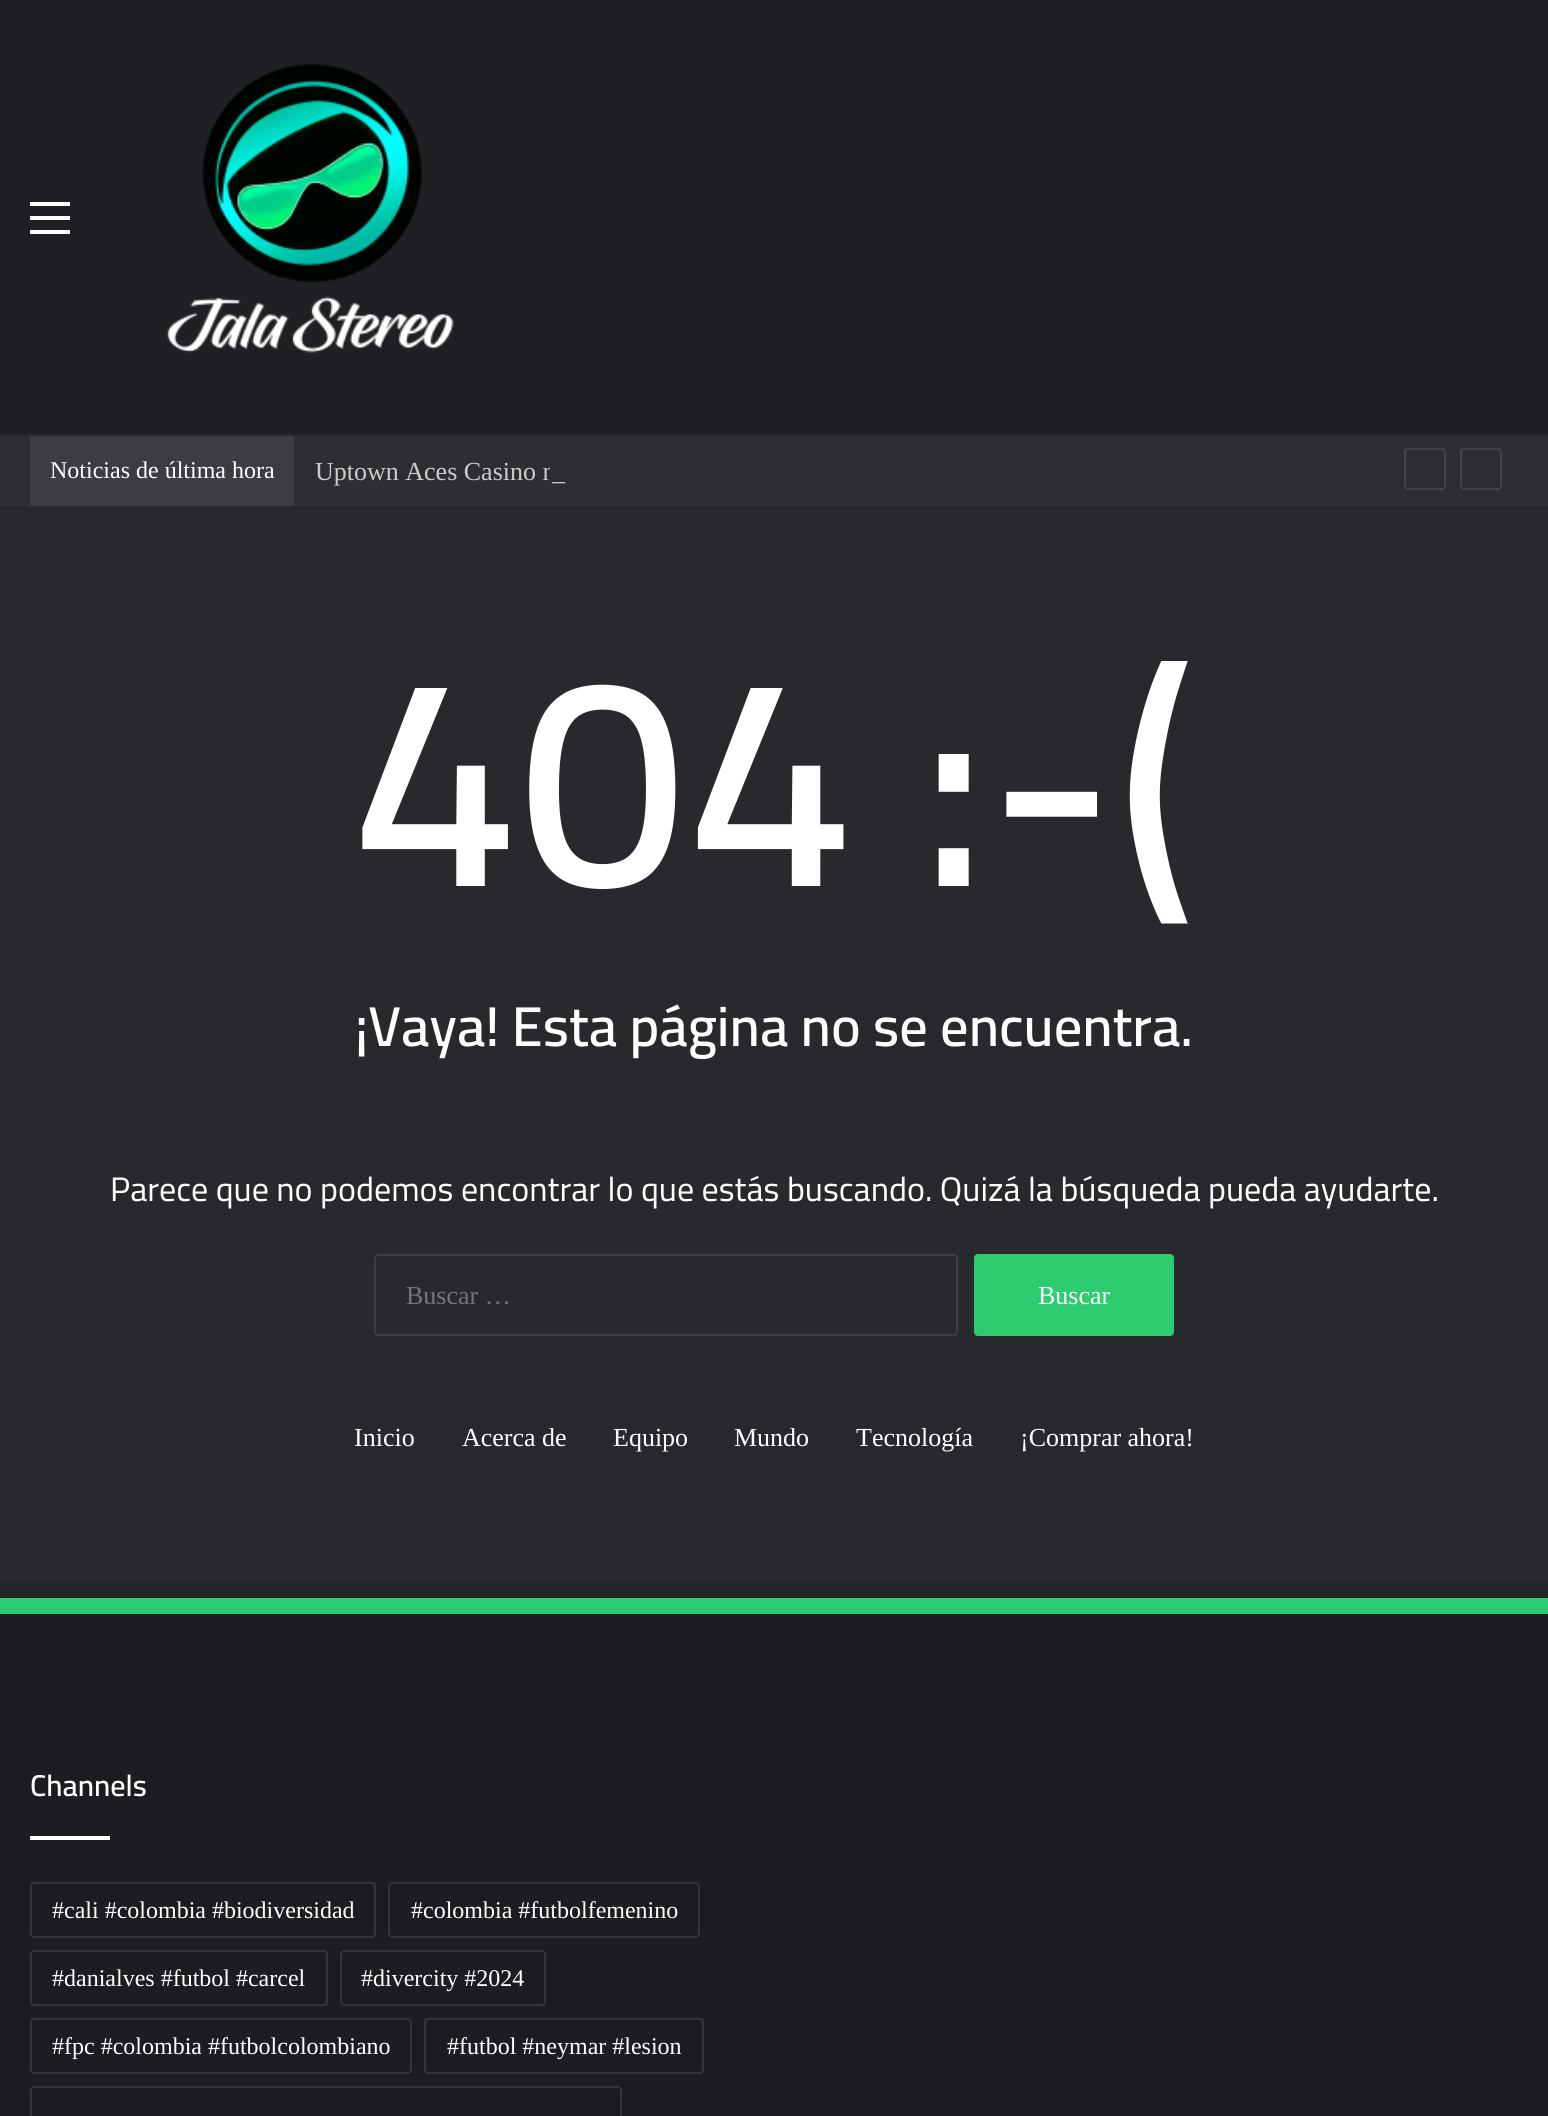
#include <cairo.h>
#include <math.h>
#include <stddef.h>

static cairo_t *c;
static void C(unsigned color){cairo_set_source_rgb(c, (color >> 16) / 255.0, (color >> 8 & 255) / 255.0, (color & 255) / 255.0);}
static void F(const char *family, double size, int italic, int bold){cairo_select_font_face(c, family, italic ? CAIRO_FONT_SLANT_ITALIC : CAIRO_FONT_SLANT_NORMAL,bold ? CAIRO_FONT_WEIGHT_BOLD : CAIRO_FONT_WEIGHT_NORMAL);cairo_set_font_size(c, size);}
static void T(double x, double y, const char *s){cairo_move_to(c, x, y);cairo_show_text(c, s);}
static void R(double x, double y, double w, double h){cairo_rectangle(c, x, y, w, h);cairo_fill(c);}
static void Q(double x, double y, double w, double h, double r){cairo_new_sub_path(c);cairo_arc(c, x + w - r, y + h - r, r, 0, M_PI / 2);cairo_arc(c, x + r, y + h - r, r, M_PI / 2, M_PI);cairo_arc(c, x + r, y + r, r, M_PI, 1.5 * M_PI);cairo_arc(c, x + w - r, y + r, r, 1.5 * M_PI, 2 * M_PI);cairo_close_path(c);}
static void I(const char *path, double x, double y, double w, double h){cairo_surface_t *image = cairo_image_surface_create_from_png(path);cairo_save(c);cairo_set_source_surface(c, image, x, y);cairo_rectangle(c, x, y, w, h);cairo_fill(c);cairo_restore(c);cairo_surface_destroy(image);}
int main(void) {
cairo_surface_t *surface = cairo_image_surface_create(CAIRO_FORMAT_RGB24, 1548, 2116);
c = cairo_create(surface);
cairo_font_options_t *options = cairo_font_options_create();
cairo_font_options_set_hint_metrics(options, CAIRO_HINT_METRICS_OFF);
cairo_font_options_set_hint_style(options, CAIRO_HINT_STYLE_NONE);
cairo_set_font_options(c, options);
cairo_set_miter_limit(c, 4);
C(0x27292d);
cairo_paint(c);
C(0x1f2024);
R(0,0,1548,434);
C(0xffffff);
R(30,216,40,4);
R(30,202,40,4);
R(30,230,40,4);
I("1.png",167,64,287,289);
C(0x2c2e32);
R(0,436,1548,70);
C(0x3b3d42);
R(30,436,264,70);
F("Liberation Serif",24,0,0);
C(0xffffff);
T(50,478,"Noticias de última hora");
F("Liberation Serif",26,0,0);
C(0xcccccc);
T(315,480,"Uptown Aces Casino n");
C(0x2c2e32);
R(550,467,5,13);
C(0xcccccc);
T(552,480,"_");
Q(1405,449,40,40,3);
C(0x414347);
cairo_stroke(c);
Q(1461,449,40,40,3);
cairo_stroke(c);
F("Cairo SemiBold",300,0,0);
C(0xffffff);
T(351,886,"404 :-(");
F("Cairo SemiBold",56,0,0);
T(355,1046,"¡Vaya! Esta página no se encuentra.");
F("Cairo",34,0,0);
T(110,1201,"Parece que no podemos encontrar lo que estás buscando. Quizá la búsqueda pueda ayudarte.");
Q(375,1255,582,80,3);
C(0x3d3e42);
cairo_stroke(c);
F("Liberation Serif",26,0,0);
C(0x757575);
T(406,1304,"Buscar …");
C(0x2ecc71);
Q(974,1254,200,82,4);
cairo_fill(c);
C(0xffffff);
T(1038,1304,"Buscar");
T(354,1446,"Inicio");
T(462,1446,"Acerca de");
T(613,1446,"Equipo");
T(734,1446,"Mundo");
T(856,1446,"Tecnología");
T(1020,1446,"¡Comprar ahora!");
C(0x1c1d21);
R(0,1614,1548,502);
C(0x24262a);
R(0,1582,1548,16);
C(0x2ecc71);
R(0,1598,1548,16);
F("Cairo SemiBold",30,0,0);
C(0xffffff);
T(30,1796,"Channels");
R(30,1836,80,4);
Q(31,1883,344,54,3);
C(0x333437);
cairo_stroke(c);
F("Liberation Serif",24,0,0);
C(0xffffff);
T(52,1918,"#cali #colombia #biodiversidad");
Q(389,1883,310,54,3);
C(0x333437);
cairo_stroke(c);
C(0xffffff);
T(411,1918,"#colombia #futbolfemenino");
Q(31,1951,296,54,3);
C(0x333437);
cairo_stroke(c);
C(0xffffff);
T(52,1986,"#danialves #futbol #carcel");
Q(341,1951,204,54,3);
C(0x333437);
cairo_stroke(c);
C(0xffffff);
T(361,1986,"#divercity #2024");
Q(31,2019,380,54,3);
C(0x333437);
cairo_stroke(c);
C(0xffffff);
T(52,2054,"#fpc #colombia #futbolcolombiano");
Q(425,2019,278,54,3);
C(0x333437);
cairo_stroke(c);
C(0xffffff);
T(447,2054,"#futbol #neymar #lesion");
Q(31,2087,590,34,3);
C(0x333437);
cairo_stroke(c);
cairo_surface_write_to_png(surface, "o.png");
cairo_font_options_destroy(options);
cairo_destroy(c);
cairo_surface_destroy(surface);
return 0;
}
